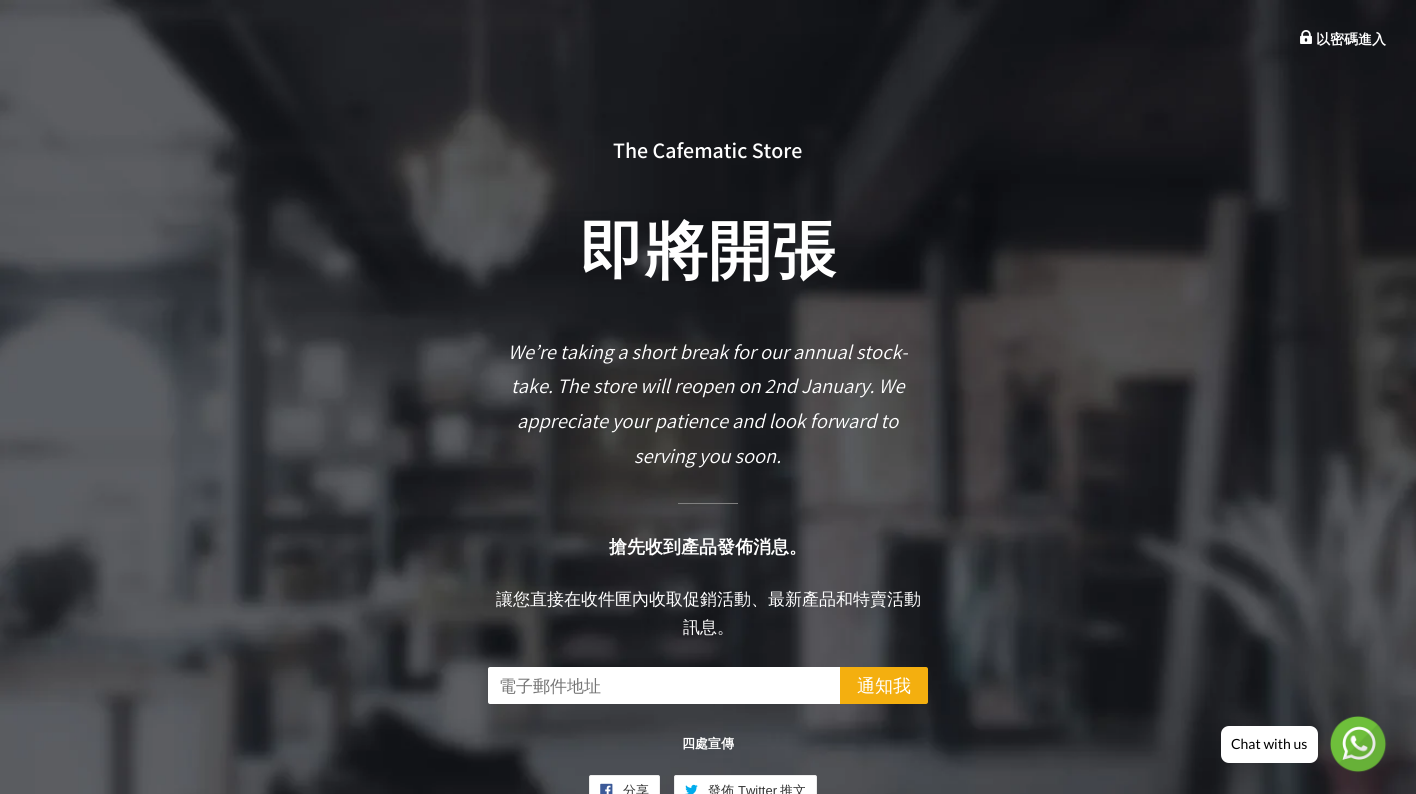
#include <cairo.h>
#include <math.h>
#include <stddef.h>

static cairo_t *c;
static void C(unsigned color){cairo_set_source_rgb(c, (color >> 16) / 255.0, (color >> 8 & 255) / 255.0, (color & 255) / 255.0);}
static void F(const char *family, double size, int italic, int bold){cairo_select_font_face(c, family, italic ? CAIRO_FONT_SLANT_ITALIC : CAIRO_FONT_SLANT_NORMAL,bold ? CAIRO_FONT_WEIGHT_BOLD : CAIRO_FONT_WEIGHT_NORMAL);cairo_set_font_size(c, size);}
static void T(double x, double y, const char *s){cairo_move_to(c, x, y);cairo_show_text(c, s);}
static void R(double x, double y, double w, double h){cairo_rectangle(c, x, y, w, h);cairo_fill(c);}
static void Q(double x, double y, double w, double h, double r){cairo_new_sub_path(c);cairo_arc(c, x + w - r, y + h - r, r, 0, M_PI / 2);cairo_arc(c, x + r, y + h - r, r, M_PI / 2, M_PI);cairo_arc(c, x + r, y + r, r, M_PI, 1.5 * M_PI);cairo_arc(c, x + w - r, y + r, r, 1.5 * M_PI, 2 * M_PI);cairo_close_path(c);}
static void I(const char *path, double x, double y, double w, double h){cairo_surface_t *image = cairo_image_surface_create_from_png(path);cairo_save(c);cairo_set_source_surface(c, image, x, y);cairo_rectangle(c, x, y, w, h);cairo_fill(c);cairo_restore(c);cairo_surface_destroy(image);}
int main(void) {
cairo_surface_t *surface = cairo_image_surface_create(CAIRO_FORMAT_RGB24, 1416, 794);
c = cairo_create(surface);
cairo_font_options_t *options = cairo_font_options_create();
cairo_font_options_set_hint_metrics(options, CAIRO_HINT_METRICS_OFF);
cairo_font_options_set_hint_style(options, CAIRO_HINT_STYLE_NONE);
cairo_set_font_options(c, options);
cairo_set_miter_limit(c, 4);
C(0xffffff);
cairo_paint(c);
I("1.png",0,0,1416,794);
I("2.png",1300,30,12,14);
F("WenQuanYi Zen Hei",14,0,1);
C(0xffffff);
T(1316,44,"以密碼進入");
F("Assistant SemiBold",22,0,0);
T(613,158,"The Cafematic Store");
F("WenQuanYi Zen Hei",64,0,1);
T(580,273,"即將開張");
F("Assistant",20.4,1,0);
T(508,359,"We’re taking a short break for our annual stock-");
T(511,393,"take. The store will reopen on 2nd January. We");
T(517,428,"appreciate your patience and look forward to");
T(634,463,"serving you soon.");
C(0x808080);
R(678,503,60,1);
F("WenQuanYi Zen Hei",18,0,1);
C(0xffffff);
T(609,553,"搶先收到產品發佈消息。");
F("WenQuanYi Zen Hei Medium",17,0,0);
T(496,605,"讓您直接在收件匣內收取促銷活動、最新產品和特賣活動");
T(683,633,"訊息。");
cairo_new_path(c);
cairo_move_to(c,490,667);
cairo_line_to(c,840,667);
cairo_line_to(c,840,704);
cairo_line_to(c,490,704);
cairo_curve_to(c,489,704,488,703,488,702);
cairo_line_to(c,488,669);
cairo_curve_to(c,488,668,489,667,490,667);
cairo_close_path(c);
cairo_fill(c);
cairo_new_path(c);
cairo_move_to(c,490,667.5);
cairo_line_to(c,839.5,667.5);
cairo_line_to(c,839.5,703.5);
cairo_line_to(c,490,703.5);
cairo_curve_to(c,489,703.5,488.5,703,488.5,702);
cairo_line_to(c,488.5,669);
cairo_curve_to(c,488.5,668,489,667.5,490,667.5);
cairo_close_path(c);
cairo_set_source_rgba(c,1,1,1,0.15);
cairo_set_line_width(c,1);
cairo_stroke(c);
C(0x757575);
T(499,692,"電子郵件地址");
C(0xf4af0f);
cairo_new_path(c);
cairo_move_to(c,840,667);
cairo_line_to(c,926,667);
cairo_curve_to(c,927,667,928,668,928,669);
cairo_line_to(c,928,702);
cairo_curve_to(c,928,703,927,704,926,704);
cairo_line_to(c,840,704);
cairo_close_path(c);
cairo_fill(c);
F("WenQuanYi Zen Hei Medium",18,0,0);
C(0xffffff);
T(857,692,"通知我");
F("WenQuanYi Zen Hei",13,0,1);
T(682,748,"四處宣傳");
Q(589.5,775.5,70,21,1.5);
cairo_fill_preserve(c);
C(0xececec);
cairo_stroke(c);
I("3.png",600,783,13,11);
F("WenQuanYi Zen Hei Medium",13,0,0);
C(0x333333);
T(623,795,"分享");
C(0xffffff);
Q(674.5,775.5,142,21,1.5);
cairo_fill_preserve(c);
C(0xececec);
cairo_stroke(c);
I("4.png",685,784,13,10);
C(0x333333);
T(708,795,"發佈");
F("Liberation Sans",13,0,0);
T(738,795,"Twitter");
F("WenQuanYi Zen Hei Medium",13,0,0);
T(780,795,"推文");
I("5.png",1330,716,57,57);
C(0xffffff);
Q(1221,726,97,37,8);
cairo_fill(c);
F("Lato",14,0,0);
C(0x000000);
T(1231,749,"Chat with us");
cairo_surface_write_to_png(surface, "o.png");
cairo_font_options_destroy(options);
cairo_destroy(c);
cairo_surface_destroy(surface);
return 0;
}
